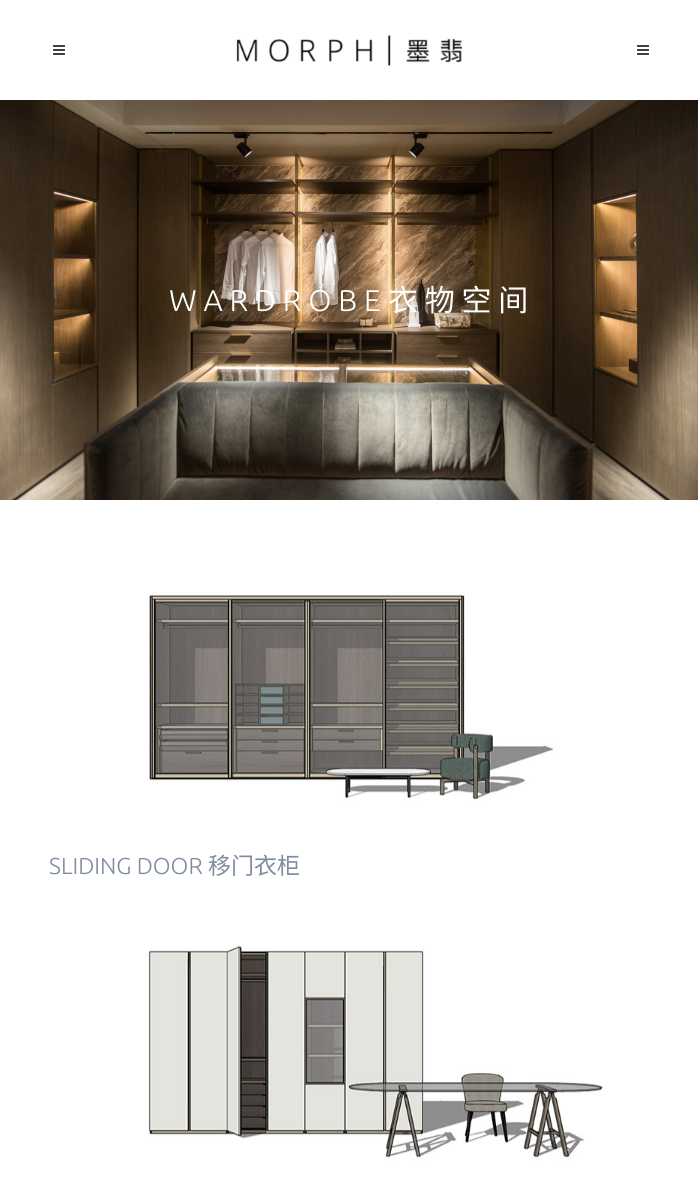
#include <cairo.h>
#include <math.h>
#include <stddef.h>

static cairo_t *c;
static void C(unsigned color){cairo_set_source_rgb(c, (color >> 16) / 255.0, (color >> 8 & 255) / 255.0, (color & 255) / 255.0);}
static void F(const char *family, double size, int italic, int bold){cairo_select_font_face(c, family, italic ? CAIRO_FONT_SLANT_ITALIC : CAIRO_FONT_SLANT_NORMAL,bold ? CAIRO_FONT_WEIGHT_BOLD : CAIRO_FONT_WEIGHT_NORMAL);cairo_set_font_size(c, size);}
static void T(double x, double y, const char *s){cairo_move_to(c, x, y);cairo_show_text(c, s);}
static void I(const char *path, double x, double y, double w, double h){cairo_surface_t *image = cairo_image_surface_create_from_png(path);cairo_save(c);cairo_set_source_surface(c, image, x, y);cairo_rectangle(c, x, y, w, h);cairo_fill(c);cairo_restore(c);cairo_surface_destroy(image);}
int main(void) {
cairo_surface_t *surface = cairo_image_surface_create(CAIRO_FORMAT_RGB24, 698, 1186);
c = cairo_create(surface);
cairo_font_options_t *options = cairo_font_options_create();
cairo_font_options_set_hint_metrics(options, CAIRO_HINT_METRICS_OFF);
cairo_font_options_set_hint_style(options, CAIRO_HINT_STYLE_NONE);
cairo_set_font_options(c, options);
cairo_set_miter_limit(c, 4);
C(0xffffff);
cairo_paint(c);
I("1.png",53,45,12,10);
I("2.png",236,35,226,31);
I("1.png",637,45,12,10);
I("3.png",0,100,698,400);
F("Ubuntu Light",30,0,0);
C(0xffffff);
T(169,311,"W A R D R O B E");
F("Noto Sans CJK SC",30,0,0);
T(388,311,"衣 物 空 间");
I("4.png",149,592,405,209);
F("Ubuntu Light",23,0,0);
C(0x808ba0);
T(49,874,"SLIDING DOOR");
F("Noto Sans CJK SC",23,0,0);
T(208,874,"移门衣柜");
I("5.png",145,946,458,215);
cairo_surface_write_to_png(surface, "o.png");
cairo_font_options_destroy(options);
cairo_destroy(c);
cairo_surface_destroy(surface);
return 0;
}
